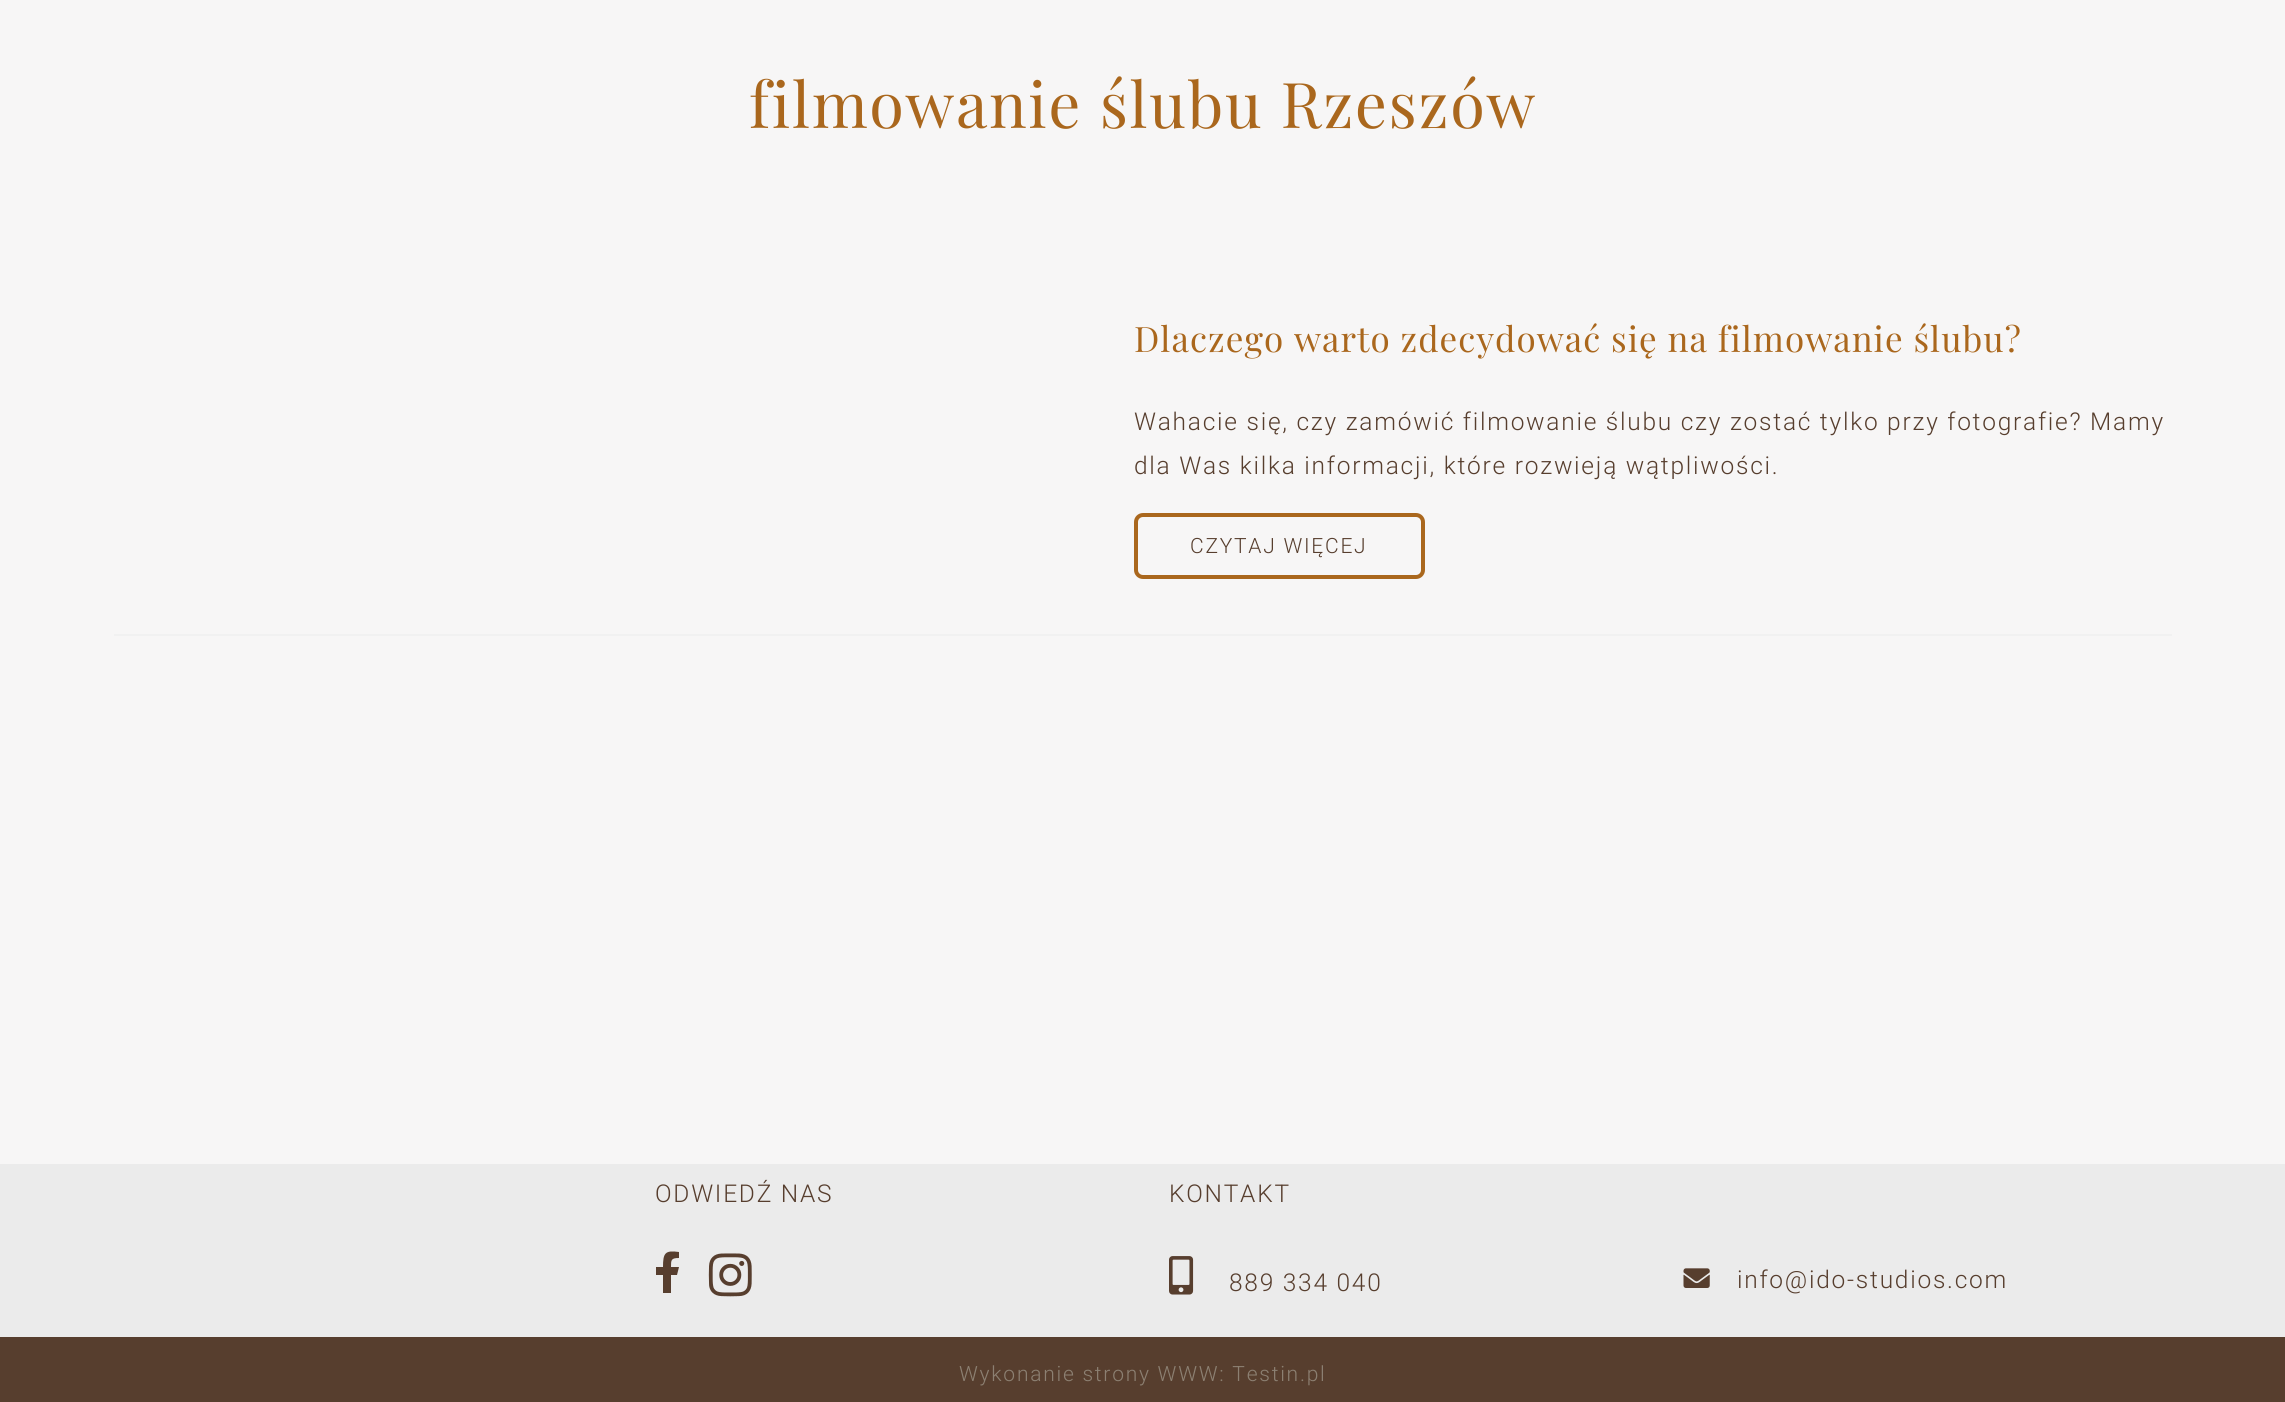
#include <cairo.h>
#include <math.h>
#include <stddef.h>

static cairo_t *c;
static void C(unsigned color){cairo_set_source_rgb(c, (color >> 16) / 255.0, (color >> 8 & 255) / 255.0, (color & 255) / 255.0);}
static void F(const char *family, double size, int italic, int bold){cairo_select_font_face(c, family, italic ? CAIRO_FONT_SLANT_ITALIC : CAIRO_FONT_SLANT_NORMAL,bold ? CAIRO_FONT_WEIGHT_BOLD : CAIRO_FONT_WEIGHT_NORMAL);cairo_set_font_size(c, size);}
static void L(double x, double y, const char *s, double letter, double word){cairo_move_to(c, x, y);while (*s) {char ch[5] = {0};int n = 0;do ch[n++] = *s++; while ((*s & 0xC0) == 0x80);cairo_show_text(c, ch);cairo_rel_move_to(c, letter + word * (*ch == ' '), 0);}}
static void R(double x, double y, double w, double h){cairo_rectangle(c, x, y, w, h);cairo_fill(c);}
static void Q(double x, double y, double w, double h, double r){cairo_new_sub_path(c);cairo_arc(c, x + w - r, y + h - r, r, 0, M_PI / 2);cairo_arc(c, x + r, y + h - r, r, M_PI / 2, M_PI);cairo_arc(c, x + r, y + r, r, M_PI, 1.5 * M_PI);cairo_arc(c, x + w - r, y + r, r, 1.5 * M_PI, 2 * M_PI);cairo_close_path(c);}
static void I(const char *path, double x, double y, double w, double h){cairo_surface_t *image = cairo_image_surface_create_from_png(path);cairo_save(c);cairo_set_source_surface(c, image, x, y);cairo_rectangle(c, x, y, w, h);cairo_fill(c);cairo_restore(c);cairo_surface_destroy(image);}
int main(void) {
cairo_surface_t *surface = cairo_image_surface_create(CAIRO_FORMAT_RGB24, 2285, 1402);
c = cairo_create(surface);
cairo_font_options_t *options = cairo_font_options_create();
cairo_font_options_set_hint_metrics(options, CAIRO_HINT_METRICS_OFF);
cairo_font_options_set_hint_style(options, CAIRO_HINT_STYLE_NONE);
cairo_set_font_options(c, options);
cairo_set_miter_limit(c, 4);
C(0xf7f6f6);
cairo_paint(c);
F("Playfair Display",63,0,0);
C(0xaa671d);
L(749,128,"filmowanie ślubu Rzeszów",1.75,0);
C(0xf1f1f1);
R(114,634,2058,2);
F("Playfair Display",35,0,0);
C(0xaa671d);
L(1134,352,"Dlaczego warto zdecydować się na filmowanie ślubu?",1.05,0);
F("Roboto Light",24.5,0,0);
C(0x573e2e);
L(1134,430,"Wahacie się, czy zamówić filmowanie ślubu czy zostać tylko przy fotografie? Mamy",1.75,0);
L(1134,474,"dla Was kilka informacji, które rozwieją wątpliwości.",1.75,0);
Q(1136,515,287,62,7);
C(0xaa671d);
cairo_set_line_width(c,4);
cairo_stroke(c);
F("Roboto Light",21,0,0);
C(0x573e2e);
L(1190,553,"CZYTAJ WIĘCEJ",1.75,0);
C(0xebebeb);
R(0,1164,2285,173);
F("Roboto Light",24.5,0,0);
C(0x573e2e);
L(655,1202,"ODWIEDŹ NAS",1.75,0);
cairo_new_path(c);
cairo_move_to(c,677,1275);
cairo_line_to(c,671,1275);
cairo_line_to(c,671,1293);
cairo_line_to(c,663,1293);
cairo_line_to(c,663,1275);
cairo_line_to(c,656,1275);
cairo_line_to(c,656,1267);
cairo_line_to(c,663,1267);
cairo_curve_to(c,663,1253,665,1250,679,1252);
cairo_line_to(c,679,1258);
cairo_curve_to(c,671,1258,671,1260,671,1267);
cairo_line_to(c,679,1267);
cairo_close_path(c);
cairo_fill(c);
I("1.png",708,1253,44,44);
L(1169,1202,"KONTAKT",1.75,0);
I("2.png",1169,1256,25,39);
L(1229,1291,"889 334 040",1.75,0);
I("3.png",1683,1268,27,20);
L(1737,1288,"info@ido-studios.com",1.75,0);
R(0,1337,2285,65);
F("Roboto Light",21,0,0);
C(0x8c8072);
L(959,1381,"Wykonanie strony WWW: Testin.pl",1.75,0);
cairo_surface_write_to_png(surface, "o.png");
cairo_font_options_destroy(options);
cairo_destroy(c);
cairo_surface_destroy(surface);
return 0;
}
